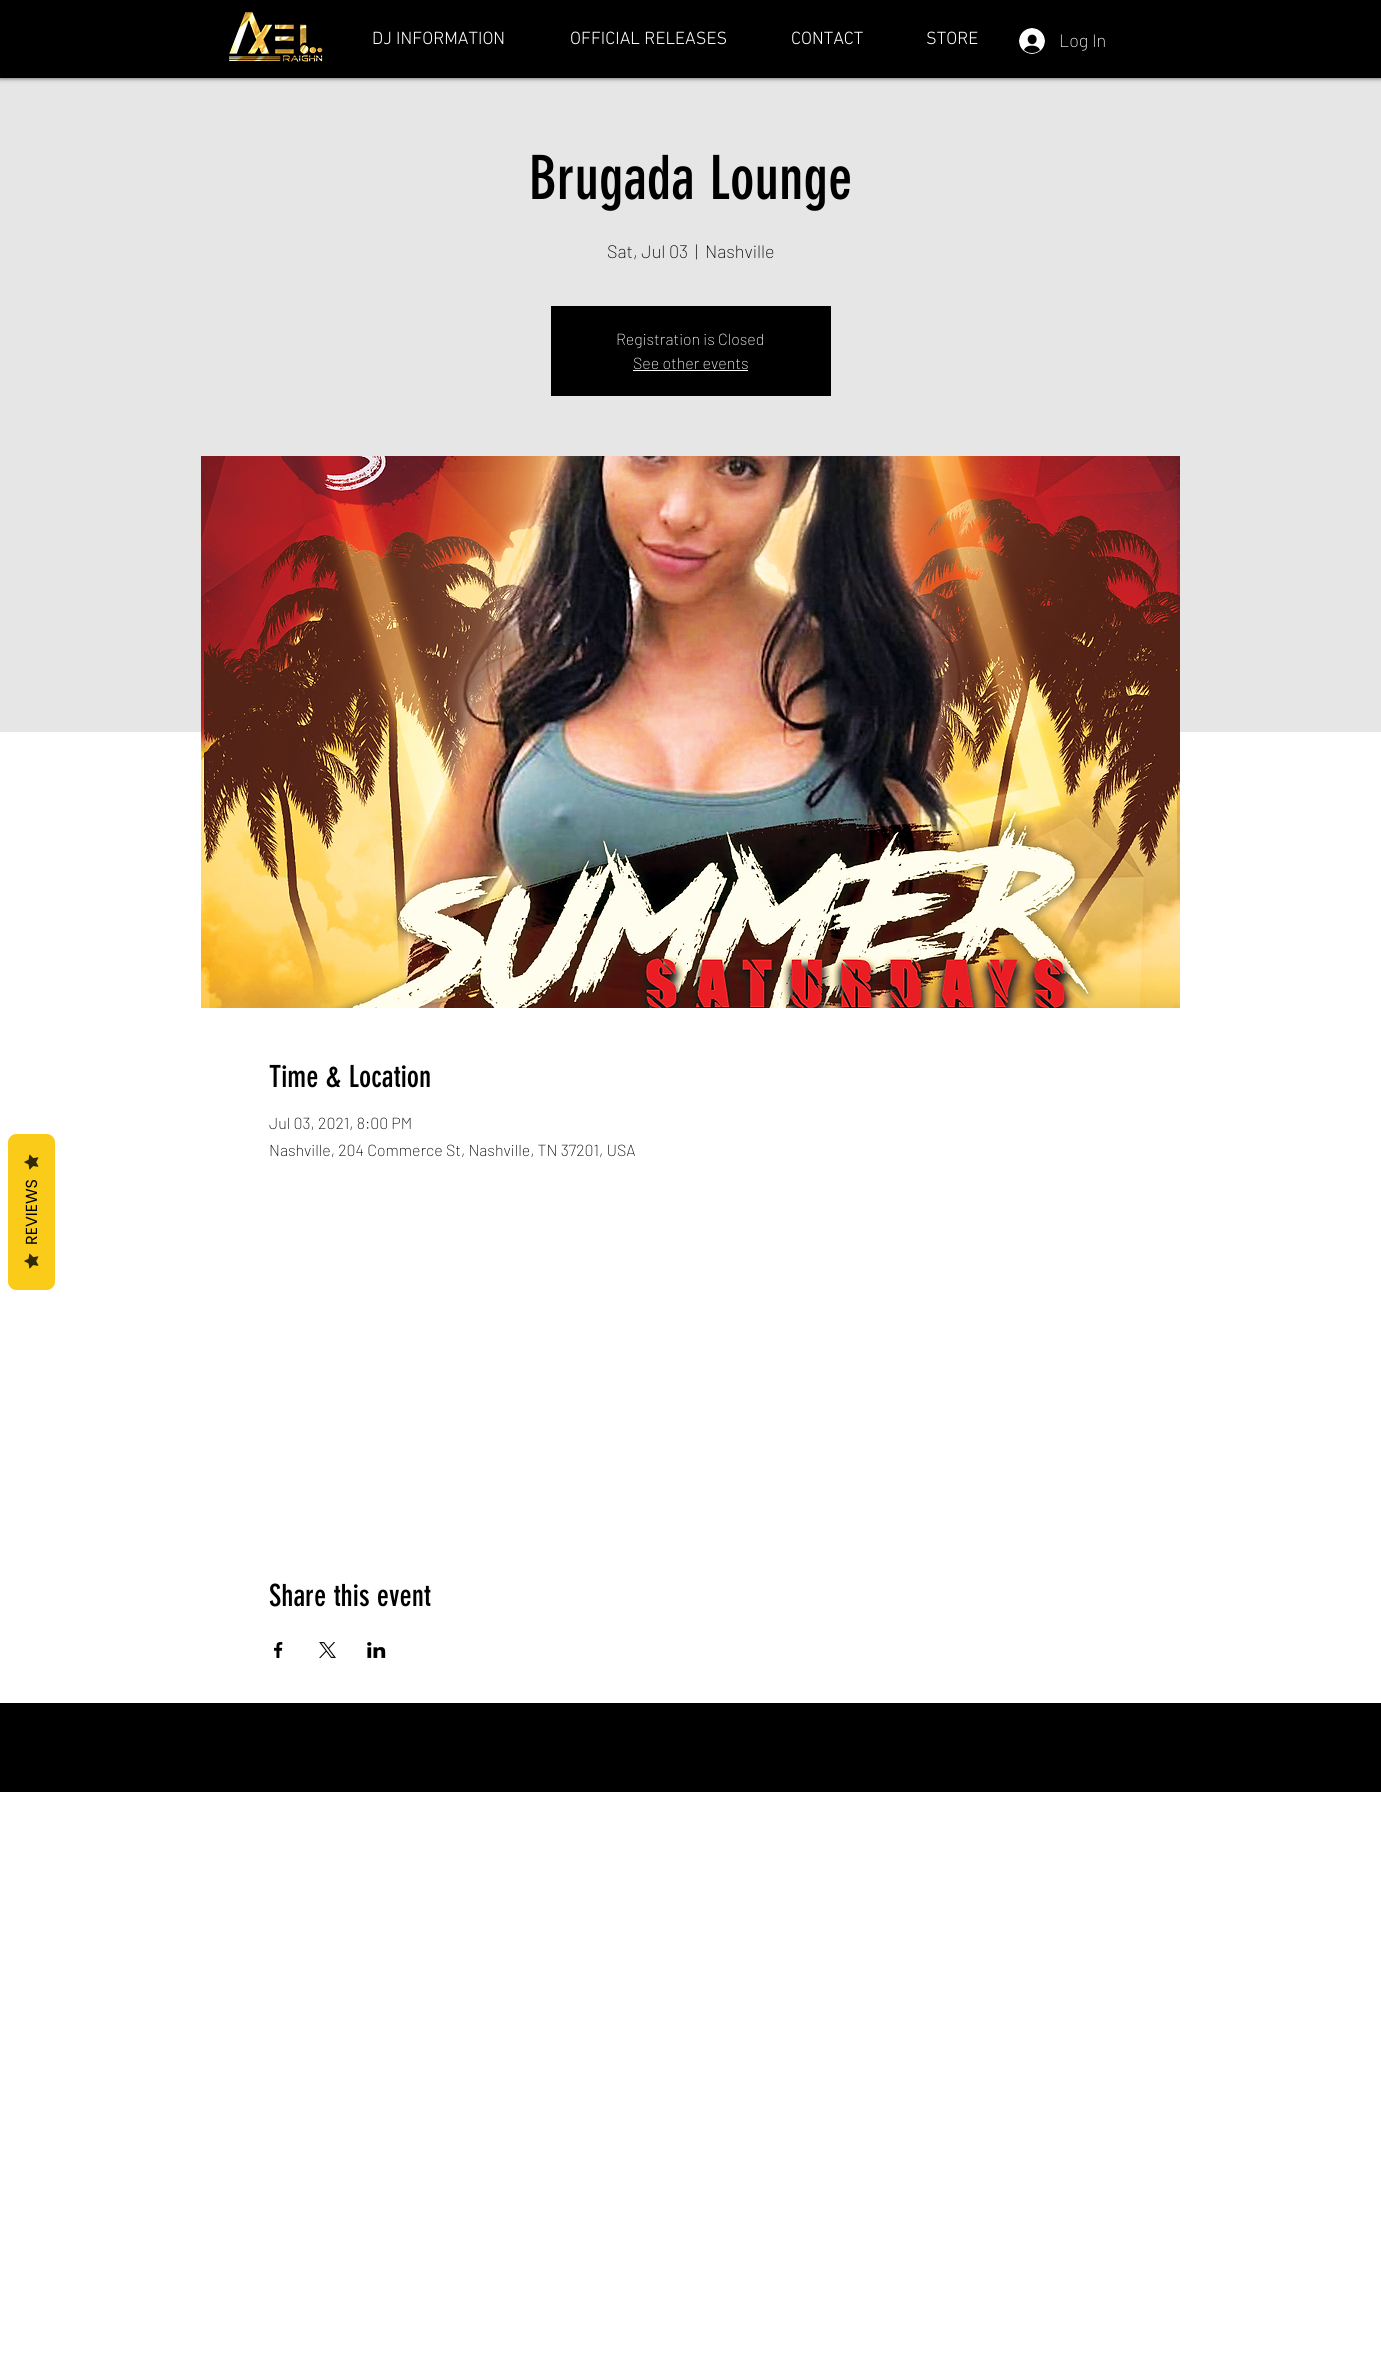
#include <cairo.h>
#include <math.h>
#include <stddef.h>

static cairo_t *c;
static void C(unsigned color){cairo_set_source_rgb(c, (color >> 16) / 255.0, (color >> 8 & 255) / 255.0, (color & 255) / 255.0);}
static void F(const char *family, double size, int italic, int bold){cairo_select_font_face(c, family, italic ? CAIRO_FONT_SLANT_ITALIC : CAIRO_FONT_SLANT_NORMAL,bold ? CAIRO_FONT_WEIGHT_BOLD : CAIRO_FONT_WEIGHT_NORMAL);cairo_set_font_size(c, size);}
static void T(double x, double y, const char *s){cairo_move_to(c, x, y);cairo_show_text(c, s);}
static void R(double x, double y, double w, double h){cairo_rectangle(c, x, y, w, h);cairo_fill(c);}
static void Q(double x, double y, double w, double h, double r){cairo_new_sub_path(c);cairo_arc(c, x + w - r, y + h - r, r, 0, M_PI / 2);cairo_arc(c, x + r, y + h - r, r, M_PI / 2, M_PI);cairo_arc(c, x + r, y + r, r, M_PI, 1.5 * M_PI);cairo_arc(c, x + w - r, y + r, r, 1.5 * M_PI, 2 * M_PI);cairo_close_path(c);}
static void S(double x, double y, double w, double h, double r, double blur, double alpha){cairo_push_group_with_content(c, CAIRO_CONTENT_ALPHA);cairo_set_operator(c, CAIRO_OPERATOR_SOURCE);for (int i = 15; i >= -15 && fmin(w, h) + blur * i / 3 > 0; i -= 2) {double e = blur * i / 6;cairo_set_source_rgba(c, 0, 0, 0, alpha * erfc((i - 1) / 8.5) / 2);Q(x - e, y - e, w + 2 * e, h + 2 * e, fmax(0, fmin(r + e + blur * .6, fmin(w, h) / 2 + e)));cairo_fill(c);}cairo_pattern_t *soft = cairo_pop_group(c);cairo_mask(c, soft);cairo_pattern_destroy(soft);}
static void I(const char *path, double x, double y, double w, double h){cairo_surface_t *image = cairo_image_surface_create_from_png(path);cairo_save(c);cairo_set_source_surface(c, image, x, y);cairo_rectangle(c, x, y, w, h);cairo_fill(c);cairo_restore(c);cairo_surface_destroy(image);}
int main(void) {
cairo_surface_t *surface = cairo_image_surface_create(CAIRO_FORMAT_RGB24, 1381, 2377);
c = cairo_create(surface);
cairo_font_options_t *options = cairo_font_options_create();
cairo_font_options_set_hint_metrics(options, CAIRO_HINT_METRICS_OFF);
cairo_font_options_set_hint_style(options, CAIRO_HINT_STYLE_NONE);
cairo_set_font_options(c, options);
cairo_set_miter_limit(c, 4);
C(0xffffff);
cairo_paint(c);
C(0xfbcb1a);
cairo_new_path(c);
cairo_move_to(c,8,1282);
cairo_line_to(c,8,1142);
cairo_curve_to(c,8,1138,12,1134,16,1134);
cairo_line_to(c,47,1134);
cairo_curve_to(c,51,1134,55,1138,55,1142);
cairo_line_to(c,55,1282);
cairo_curve_to(c,55,1286,51,1290,47,1290);
cairo_line_to(c,16,1290);
cairo_curve_to(c,12,1290,8,1286,8,1282);
cairo_close_path(c);
cairo_fill(c);
I("1.png",24,1154,15,16);
F("Poppins",16,0,0);
C(0x000000);
cairo_save(c);
cairo_translate(c,37,1245);
cairo_rotate(c,-90 * M_PI / 180);
T(0,0,"REVIEWS");
cairo_restore(c);
I("1.png",24,1253,15,16);
C(0xe6e6e6);
R(0,78,1381,654);
C(0x000000);
S(0,0,1381,78,0,2.5,.7);
C(0x000000);
R(0,0,1381,78);
I("2.png",229,12,94,50);
F("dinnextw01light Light",18,0,0);
C(0xffffff);
T(372,44,"DJ INFORMATION");
T(570,44,"OFFICIAL RELEASES");
T(791,44,"CONTACT");
T(926,44,"STORE");
I("3.png",1019,28,26,26);
F("Barlow ExtraLight",18,0,0);
T(1059,47,"Log In");
F("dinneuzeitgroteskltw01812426",60,0,0);
C(0x000000);
T(529,199,"Brugada Lounge");
F("Barlow ExtraLight",18,0,0);
T(607,258,"Sat, Jul 03");
T(695,258,"|");
T(705,258,"Nashville");
R(551,306,280,90);
F("Barlow ExtraLight",16,0,0);
C(0xffffff);
T(616,345,"Registration is Closed");
T(633,369,"See other events");
R(633,370,115,1);
I("4.png",201,456,979,552);
F("dinneuzeitgroteskltw01812426",30,0,0);
C(0x000000);
T(269,1087,"Time & Location");
F("Barlow ExtraLight",16,0,0);
T(269,1129,"Jul 03, 2021, 8:00 PM");
T(269,1156,"Nashville, 204 Commerce St, Nashville, TN 37201, USA");
F("dinneuzeitgroteskltw01812426",30,0,0);
T(269,1606,"Share this event");
I("5.png",274,1642,9,16);
I("6.png",319,1642,17,16);
I("7.png",367,1642,19,16);
R(0,1703,1381,89);
cairo_surface_write_to_png(surface, "o.png");
cairo_font_options_destroy(options);
cairo_destroy(c);
cairo_surface_destroy(surface);
return 0;
}
